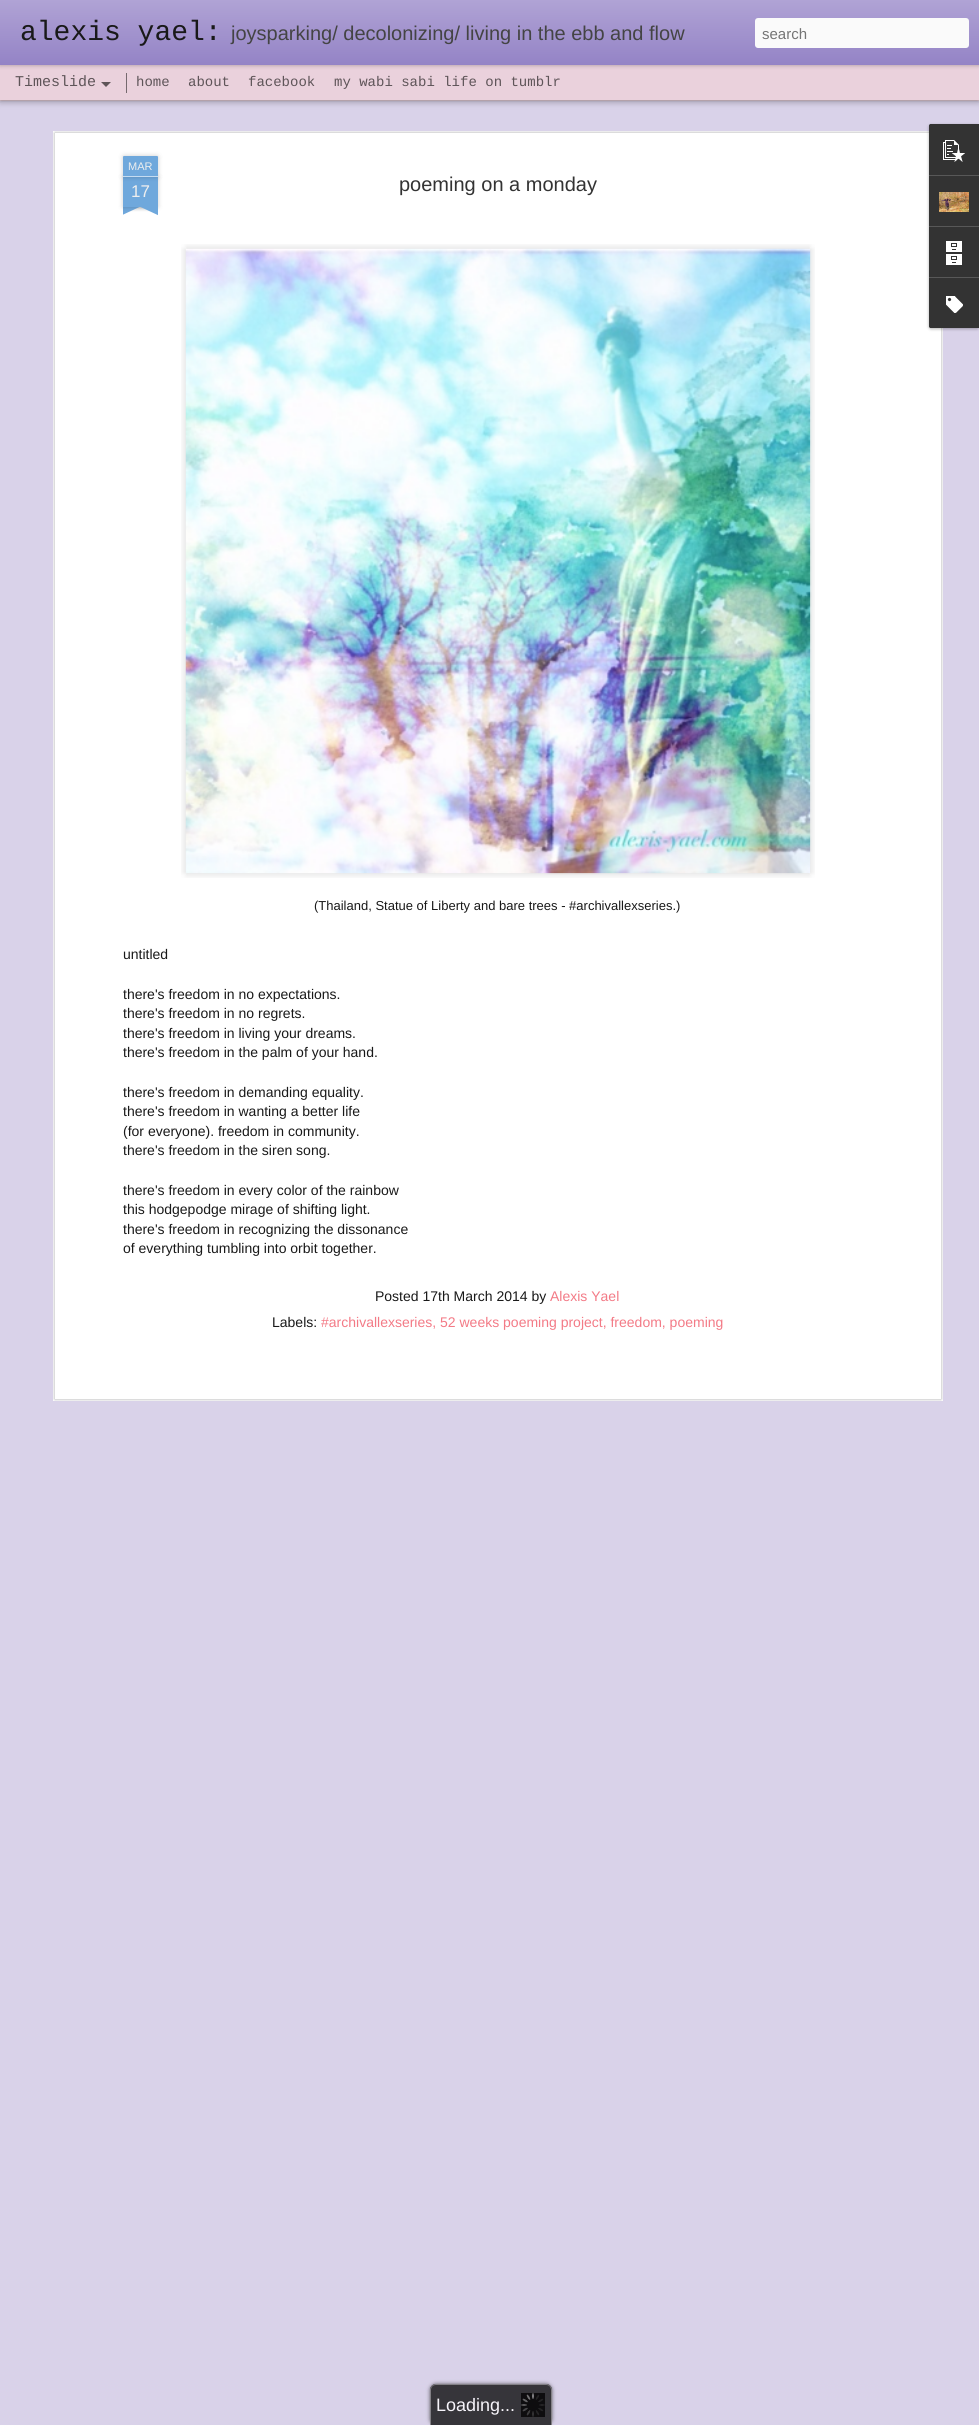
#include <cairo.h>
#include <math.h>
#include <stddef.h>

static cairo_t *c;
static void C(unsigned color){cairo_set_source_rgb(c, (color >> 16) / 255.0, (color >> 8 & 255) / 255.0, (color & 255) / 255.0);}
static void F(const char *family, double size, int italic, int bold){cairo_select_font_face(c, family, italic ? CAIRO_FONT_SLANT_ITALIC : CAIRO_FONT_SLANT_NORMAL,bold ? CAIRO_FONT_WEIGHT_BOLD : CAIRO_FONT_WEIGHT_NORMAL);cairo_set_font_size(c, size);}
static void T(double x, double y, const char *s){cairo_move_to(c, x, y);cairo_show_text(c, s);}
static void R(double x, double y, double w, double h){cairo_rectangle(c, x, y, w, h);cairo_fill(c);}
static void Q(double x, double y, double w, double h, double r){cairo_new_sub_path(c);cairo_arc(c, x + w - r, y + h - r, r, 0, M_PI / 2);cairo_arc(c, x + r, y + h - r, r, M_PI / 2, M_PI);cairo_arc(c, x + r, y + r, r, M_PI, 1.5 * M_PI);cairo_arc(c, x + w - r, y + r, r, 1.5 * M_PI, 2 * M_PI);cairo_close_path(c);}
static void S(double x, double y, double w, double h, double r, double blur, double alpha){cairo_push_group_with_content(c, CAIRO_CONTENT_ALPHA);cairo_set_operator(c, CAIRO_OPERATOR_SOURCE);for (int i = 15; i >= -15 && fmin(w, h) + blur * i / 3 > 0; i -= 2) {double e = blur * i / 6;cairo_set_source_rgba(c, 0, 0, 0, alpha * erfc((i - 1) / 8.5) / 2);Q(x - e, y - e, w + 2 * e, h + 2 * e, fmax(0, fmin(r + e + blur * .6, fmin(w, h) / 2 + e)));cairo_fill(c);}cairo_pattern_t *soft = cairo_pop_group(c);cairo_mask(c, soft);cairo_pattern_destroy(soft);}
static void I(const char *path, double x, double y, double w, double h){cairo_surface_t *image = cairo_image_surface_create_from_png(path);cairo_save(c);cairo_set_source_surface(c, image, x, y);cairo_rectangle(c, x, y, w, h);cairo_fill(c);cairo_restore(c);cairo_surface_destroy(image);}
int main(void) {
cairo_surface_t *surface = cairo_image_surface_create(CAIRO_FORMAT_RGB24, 979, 2425);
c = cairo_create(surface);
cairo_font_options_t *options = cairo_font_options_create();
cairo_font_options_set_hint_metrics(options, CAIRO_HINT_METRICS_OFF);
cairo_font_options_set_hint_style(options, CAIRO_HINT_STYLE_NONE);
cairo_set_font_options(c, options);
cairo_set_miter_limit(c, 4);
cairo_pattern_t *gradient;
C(0xead1dc);
cairo_paint(c);
C(0xd9d2e9);
R(0,101,979,2324);
C(0x000000);
S(0,65,979,35,0,4,.5);
C(0xead1dc);
R(0,65,979,35);
C(0x75696e);
R(126,73,1,20);
C(0x000000);
S(0,0,979,65,0,2.5,.3);
gradient = cairo_pattern_create_linear(0,0,0,65);
cairo_pattern_add_color_stop_rgba(gradient,0,0.69,0.639,0.835,1);
cairo_pattern_add_color_stop_rgba(gradient,1,0.58,0.514,0.776,1);
cairo_set_source(c,gradient);
cairo_pattern_destroy(gradient);
R(0,0,979,65);
F("Liberation Mono",28,0,0);
C(0x191919);
T(20,40,"alexis yael:");
F("Liberation Sans",20,0,0);
C(0x444444);
T(231,40,"joysparking/ decolonizing/ living in the ebb and flow");
C(0xfafafa);
Q(755,18,214,30,3);
cairo_fill(c);
F("Liberation Sans",15,0,0);
C(0x757575);
T(762,39,"search");
F("Liberation Mono",15,0,0);
C(0x5e5458);
T(15,86,"Timeslide");
cairo_new_path(c);
cairo_move_to(c,101,82);
cairo_line_to(c,111,82);
cairo_line_to(c,106,87);
cairo_close_path(c);
cairo_fill(c);
F("Liberation Mono",14,0,0);
T(136,86,"home");
T(188,86,"about");
T(248,86,"facebook");
T(334,86,"my wabi sabi life on tumblr");
C(0xffffff);
R(53,131,890,1270);
I("1.png",53,131,890,1270);
C(0x000000);
S(123,177,35,30,0,2.5,.2);
C(0x6fa8dc);
R(123,177,35,30);
C(0x000000);
S(123,156,35,21,1,2.5,.2);
C(0x6fa8dc);
cairo_new_path(c);
cairo_move_to(c,124,156);
cairo_line_to(c,157,156);
cairo_curve_to(c,157.5,156,158,156.5,158,157);
cairo_line_to(c,158,177);
cairo_line_to(c,123,177);
cairo_line_to(c,123,157);
cairo_curve_to(c,123,156.5,123.5,156,124,156);
cairo_close_path(c);
cairo_fill(c);
C(0xc5dcf1);
R(123,176,35,1);
F("Liberation Sans",11,0,0);
C(0xeeeeee);
T(128,170,"MAR");
F("Liberation Sans",17,0,0);
T(131,197,"17");
cairo_save(c);
cairo_rectangle(c,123,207,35,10);
cairo_clip(c);
C(0x000000);
S(114,197,50,10,0,2.5,.2);
cairo_restore(c);
cairo_save(c);
cairo_rectangle(c,123,207,35,10);
cairo_clip(c);
C(0x6fa8dc);
cairo_new_path(c);
cairo_move_to(c,114,208);
cairo_line_to(c,159,187);
cairo_line_to(c,163,196);
cairo_line_to(c,118,217);
cairo_close_path(c);
cairo_fill(c);
cairo_restore(c);
cairo_save(c);
cairo_rectangle(c,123,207,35,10);
cairo_clip(c);
C(0x000000);
S(117,197,50,10,0,2.5,.2);
cairo_restore(c);
cairo_save(c);
cairo_rectangle(c,123,207,35,10);
cairo_clip(c);
C(0x6fa8dc);
cairo_new_path(c);
cairo_move_to(c,121,187);
cairo_line_to(c,166,208);
cairo_line_to(c,162,217);
cairo_line_to(c,117,196);
cairo_close_path(c);
cairo_fill(c);
cairo_restore(c);
F("Liberation Sans",20,0,0);
C(0x333333);
T(399,191,"poeming on a monday");
I("2.png",181,244,634,634);
I("3.png",185,248,627,627);
F("Liberation Sans",13,0,0);
C(0x191919);
T(314,910,"(Thailand, Statue of Liberty and bare trees - #archivallexseries.)");
F("Liberation Sans",14,0,0);
T(123,959,"untitled");
T(123,999,"there's freedom in no expectations.");
T(123,1018,"there's freedom in no regrets.");
T(123,1038,"there's freedom in living your dreams.");
T(123,1057,"there's freedom in the palm of your hand.");
T(123,1097,"there's freedom in demanding equality.");
T(123,1116,"there's freedom in wanting a better life");
T(123,1136,"(for everyone). freedom in community.");
T(123,1155,"there's freedom in the siren song.");
T(123,1195,"there's freedom in every color of the rainbow");
T(123,1214,"this hodgepodge mirage of shifting light.");
T(123,1234,"there's freedom in recognizing the dissonance");
T(123,1253,"of everything tumbling into orbit together.");
T(375,1301,"Posted 17th March 2014 by");
C(0xf37a86);
T(550,1301,"Alexis Yael");
C(0x191919);
T(272,1327,"Labels:");
C(0xf37a86);
T(321,1327,"#archivallexseries, 52 weeks poeming project, freedom, poeming");
C(0x000000);
S(929,125,50,204,2,1.5,.3);
C(0x333333);
cairo_new_path(c);
cairo_move_to(c,931,124);
cairo_line_to(c,979,124);
cairo_line_to(c,979,328);
cairo_line_to(c,931,328);
cairo_curve_to(c,930,328,929,327,929,326);
cairo_line_to(c,929,126);
cairo_curve_to(c,929,125,930,124,931,124);
cairo_close_path(c);
cairo_fill(c);
cairo_new_path(c);
cairo_move_to(c,931,124);
cairo_line_to(c,979,124);
cairo_line_to(c,979,175);
cairo_line_to(c,929,175);
cairo_line_to(c,929,126);
cairo_curve_to(c,929,125,930,124,931,124);
cairo_close_path(c);
cairo_fill(c);
I("4.png",943,140,22,22);
C(0x585858);
R(929,175,50,1);
I("5.png",939,192,30,20);
R(929,226,50,1);
I("6.png",946,241,16,24);
C(0x333333);
cairo_new_path(c);
cairo_move_to(c,929,277);
cairo_line_to(c,979,277);
cairo_line_to(c,979,328);
cairo_line_to(c,931,328);
cairo_curve_to(c,930,328,929,327,929,326);
cairo_close_path(c);
cairo_fill(c);
C(0x585858);
R(929,277,50,1);
I("7.png",946,296,17,17);
C(0x5d5b61);
S(430,2384,122,41,6,2,1);
C(0x36353a);
cairo_new_path(c);
cairo_move_to(c,436,2384);
cairo_line_to(c,546,2384);
cairo_curve_to(c,549.5,2384,552,2386.5,552,2390);
cairo_line_to(c,552,2425);
cairo_line_to(c,430,2425);
cairo_line_to(c,430,2390);
cairo_curve_to(c,430,2386.5,432.5,2384,436,2384);
cairo_close_path(c);
cairo_fill(c);
C(0x838187);
cairo_set_fill_rule(c,CAIRO_FILL_RULE_EVEN_ODD);
cairo_new_path(c);
cairo_move_to(c,436,2384);
cairo_line_to(c,546,2384);
cairo_curve_to(c,549,2384,552,2387,552,2390);
cairo_line_to(c,552,2425);
cairo_line_to(c,430,2425);
cairo_line_to(c,430,2390);
cairo_curve_to(c,430,2387,433,2384,436,2384);
cairo_close_path(c);
cairo_move_to(c,436,2385);
cairo_line_to(c,546,2385);
cairo_curve_to(c,549,2385,551,2387,551,2390);
cairo_line_to(c,551,2425);
cairo_line_to(c,431,2425);
cairo_line_to(c,431,2390);
cairo_curve_to(c,431,2387,433,2385,436,2385);
cairo_close_path(c);
cairo_fill(c);
I("8.png",521,2393,24,24);
F("Liberation Sans",18,0,0);
C(0xf6f4fa);
T(436,2411,"Loading...");
cairo_surface_write_to_png(surface, "o.png");
cairo_font_options_destroy(options);
cairo_destroy(c);
cairo_surface_destroy(surface);
return 0;
}
